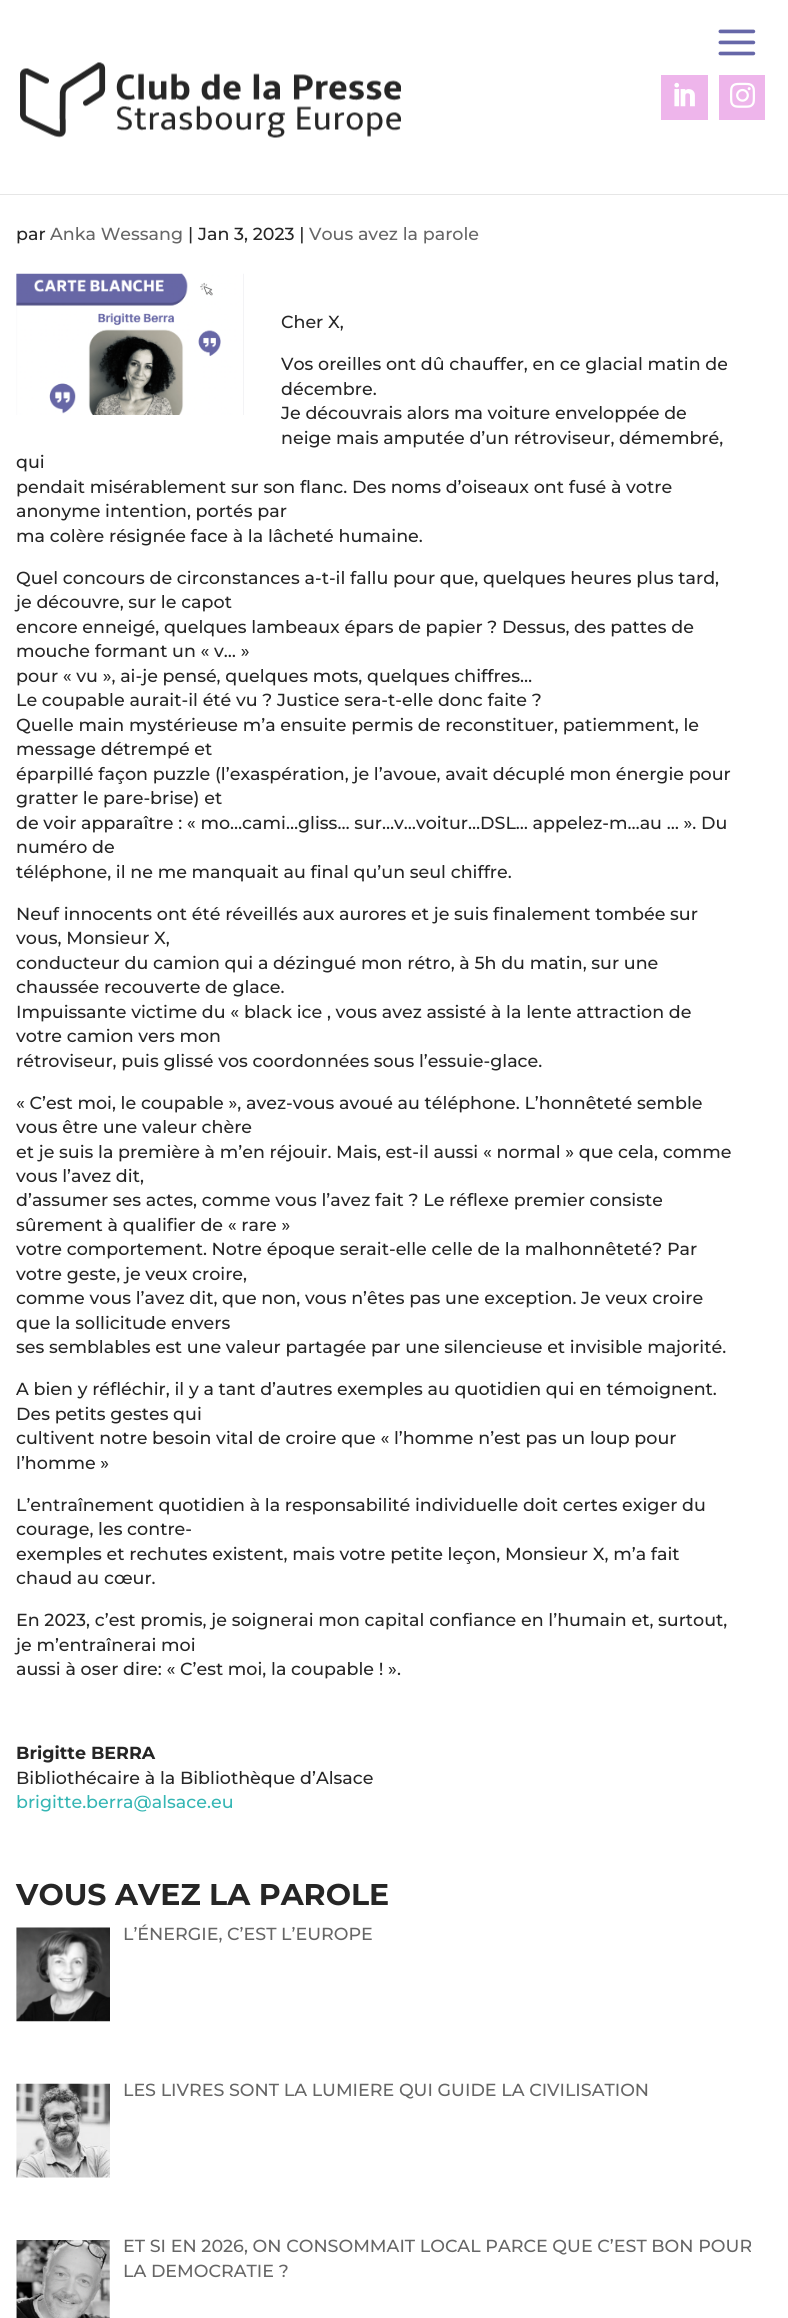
#include <cairo.h>
#include <math.h>
#include <stddef.h>

typedef struct { double x, y; const char *s; } line_t;

static void ink(cairo_t *ctx, unsigned color) {
    cairo_set_source_rgb(ctx, (color >> 16) / 255.0, (color >> 8 & 255) / 255.0, (color & 255) / 255.0);
}

static void paste(cairo_t *ctx, const char *path, double x, double y, double w, double h) {
    cairo_surface_t *image = cairo_image_surface_create_from_png(path);
    cairo_save(ctx);
    cairo_set_source_surface(ctx, image, x, y);
    cairo_rectangle(ctx, x, y, w, h);
    cairo_fill(ctx);
    cairo_restore(ctx);
    cairo_surface_destroy(image);
}

int main(void) {
    cairo_surface_t *surface = cairo_image_surface_create(CAIRO_FORMAT_RGB24, 788, 2318);
    cairo_t *ctx = cairo_create(surface);
    cairo_font_options_t *options = cairo_font_options_create();
    cairo_font_options_set_hint_metrics(options, CAIRO_HINT_METRICS_OFF);
    cairo_font_options_set_hint_style(options, CAIRO_HINT_STYLE_NONE);
    cairo_set_font_options(ctx, options);
    cairo_set_miter_limit(ctx, 4);
    ink(ctx, 0xFFFFFF);
    cairo_paint(ctx);
    cairo_set_source_rgba(ctx, 0, 0, 0, 0.1);
    cairo_new_path(ctx);
    cairo_move_to(ctx, 0, 194);
    cairo_line_to(ctx, 0, 195);
    cairo_line_to(ctx, 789, 195);
    cairo_line_to(ctx, 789, 1);
    cairo_line_to(ctx, 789, 194);
    cairo_close_path(ctx);
    cairo_fill(ctx);
    paste(ctx, "media/1.png", 718, 29, 38, 27);
    paste(ctx, "media/2.png", 20, 62, 381, 76);
    ink(ctx, 0xEEB5EB);
    cairo_rectangle(ctx, 661, 75, 47, 45);
    cairo_fill(ctx);
    paste(ctx, "media/3.png", 674, 82, 21, 25);
    cairo_rectangle(ctx, 719, 75, 46, 45);
    cairo_fill(ctx);
    paste(ctx, "media/4.png", 730, 82, 25, 26);
    cairo_select_font_face(ctx, "Montserrat Thin", CAIRO_FONT_SLANT_NORMAL, CAIRO_FONT_WEIGHT_NORMAL);
    cairo_set_font_size(ctx, 17.5);
    ink(ctx, 0x262626);
    cairo_move_to(ctx, 16, 240);
    cairo_show_text(ctx, "par");
    ink(ctx, 0x666666);
    cairo_move_to(ctx, 50, 240);
    cairo_show_text(ctx, "Anka Wessang");
    ink(ctx, 0x262626);
    cairo_move_to(ctx, 188, 240);
    cairo_show_text(ctx, "| Jan 3, 2023 |");
    ink(ctx, 0x666666);
    cairo_move_to(ctx, 309, 240);
    cairo_show_text(ctx, "Vous avez la parole");
    paste(ctx, "media/5.png", 16, 273, 228, 142);
    ink(ctx, 0x262626);
    {
        static const line_t items[] = {
            {281, 328, "Cher X,"},
            {281, 370, "Vos oreilles ont dû chauffer, en ce glacial matin de"},
            {281, 395, "décembre."},
            {281, 419, "Je découvrais alors ma voiture enveloppée de"},
            {281, 444, "neige mais amputée d’un rétroviseur, démembré,"},
            {16, 468, "qui"},
            {16, 493, "pendait misérablement sur son flanc. Des noms d’oiseaux ont fusé à votre"},
            {16, 517, "anonyme intention, portés par"},
            {16, 542, "ma colère résignée face à la lâcheté humaine."},
            {16, 584, "Quel concours de circonstances a-t-il fallu pour que, quelques heures plus tard,"},
            {16, 608, "je découvre, sur le capot"},
            {16, 633, "encore enneigé, quelques lambeaux épars de papier ? Dessus, des pattes de"},
            {16, 657, "mouche formant un « v… »"},
            {16, 682, "pour « vu », ai-je pensé, quelques mots, quelques chiffres…"},
            {16, 706, "Le coupable aurait-il été vu ? Justice sera-t-elle donc faite ?"},
            {16, 731, "Quelle main mystérieuse m’a ensuite permis de reconstituer, patiemment, le"},
            {16, 755, "message détrempé et"},
            {16, 780, "éparpillé façon puzzle (l’exaspération, je l’avoue, avait décuplé mon énergie pour"},
            {16, 804, "gratter le pare-brise) et"},
            {16, 829, "de voir apparaître : « mo…cami…gliss… sur…v…voitur…DSL… appelez-m…au … ». Du"},
            {16, 853, "numéro de"},
            {16, 878, "téléphone, il ne me manquait au final qu’un seul chiffre."},
            {16, 920, "Neuf innocents ont été réveillés aux aurores et je suis finalement tombée sur"},
            {16, 944, "vous, Monsieur X,"},
            {16, 969, "conducteur du camion qui a dézingué mon rétro, à 5h du matin, sur une"},
            {16, 993, "chaussée recouverte de glace."},
            {16, 1018, "Impuissante victime du « black ice , vous avez assisté à la lente attraction de"},
            {16, 1042, "votre camion vers mon"},
            {16, 1067, "rétroviseur, puis glissé vos coordonnées sous l’essuie-glace."},
            {16, 1109, "« C’est moi, le coupable », avez-vous avoué au téléphone. L’honnêteté semble"},
            {16, 1133, "vous être une valeur chère"},
            {16, 1158, "et je suis la première à m’en réjouir. Mais, est-il aussi « normal » que cela, comme"},
            {16, 1182, "vous l’avez dit,"},
            {16, 1206, "d’assumer ses actes, comme vous l’avez fait ? Le réflexe premier consiste"},
            {16, 1231, "sûrement à qualifier de « rare »"},
            {16, 1255, "votre comportement. Notre époque serait-elle celle de la malhonnêteté? Par"},
            {16, 1280, "votre geste, je veux croire,"},
            {16, 1304, "comme vous l’avez dit, que non, vous n’êtes pas une exception. Je veux croire"},
            {16, 1329, "que la sollicitude envers"},
            {16, 1353, "ses semblables est une valeur partagée par une silencieuse et invisible majorité."},
            {16, 1395, "A bien y réfléchir, il y a tant d’autres exemples au quotidien qui en témoignent."},
            {16, 1420, "Des petits gestes qui"},
            {16, 1444, "cultivent notre besoin vital de croire que « l’homme n’est pas un loup pour"},
            {16, 1469, "l’homme »"},
            {16, 1511, "L’entraînement quotidien à la responsabilité individuelle doit certes exiger du"},
            {16, 1535, "courage, les contre-"},
            {16, 1560, "exemples et rechutes existent, mais votre petite leçon, Monsieur X, m’a fait"},
            {16, 1584, "chaud au cœur."},
            {16, 1626, "En 2023, c’est promis, je soignerai mon capital confiance en l’humain et, surtout,"},
            {16, 1651, "je m’entraînerai moi"},
            {16, 1675, "aussi à oser dire: « C’est moi, la coupable ! »."},
        };
        for (size_t i = 0; i < sizeof items / sizeof *items; i++) {
            cairo_move_to(ctx, items[i].x, items[i].y);
            cairo_show_text(ctx, items[i].s);
        }
    }
    cairo_select_font_face(ctx, "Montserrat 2 Thin", CAIRO_FONT_SLANT_NORMAL, CAIRO_FONT_WEIGHT_NORMAL);
    cairo_move_to(ctx, 16, 1759);
    cairo_show_text(ctx, "Brigitte BERRA");
    cairo_select_font_face(ctx, "Montserrat Thin", CAIRO_FONT_SLANT_NORMAL, CAIRO_FONT_WEIGHT_NORMAL);
    cairo_move_to(ctx, 16, 1784);
    cairo_show_text(ctx, "Bibliothécaire à la Bibliothèque d’Alsace");
    ink(ctx, 0x35B6B4);
    cairo_move_to(ctx, 16, 1808);
    cairo_show_text(ctx, "brigitte.berra@alsace.eu");
    cairo_select_font_face(ctx, "Montserrat 2 Thin", CAIRO_FONT_SLANT_NORMAL, CAIRO_FONT_WEIGHT_NORMAL);
    cairo_set_font_size(ctx, 30);
    ink(ctx, 0x262626);
    cairo_move_to(ctx, 16, 1905);
    cairo_show_text(ctx, "VOUS AVEZ LA PAROLE");
    paste(ctx, "media/6.png", 16, 1927, 94, 95);
    cairo_select_font_face(ctx, "Montserrat Thin", CAIRO_FONT_SLANT_NORMAL, CAIRO_FONT_WEIGHT_NORMAL);
    cairo_set_font_size(ctx, 17.5);
    ink(ctx, 0x666666);
    cairo_move_to(ctx, 123, 1940);
    cairo_show_text(ctx, "L’ÉNERGIE, C’EST L’EUROPE");
    paste(ctx, "media/7.png", 16, 2083, 94, 95);
    cairo_move_to(ctx, 123, 2096);
    cairo_show_text(ctx, "LES LIVRES SONT LA LUMIERE QUI GUIDE LA CIVILISATION");
    paste(ctx, "media/8.png", 16, 2240, 94, 78);
    cairo_move_to(ctx, 123, 2252);
    cairo_show_text(ctx, "ET SI EN 2026, ON CONSOMMAIT LOCAL PARCE QUE C’EST BON POUR");
    cairo_move_to(ctx, 123, 2277);
    cairo_show_text(ctx, "LA DEMOCRATIE ?");
    cairo_surface_write_to_png(surface, "image.png");
    cairo_font_options_destroy(options);
    cairo_destroy(ctx);
    cairo_surface_destroy(surface);
    return 0;
}
